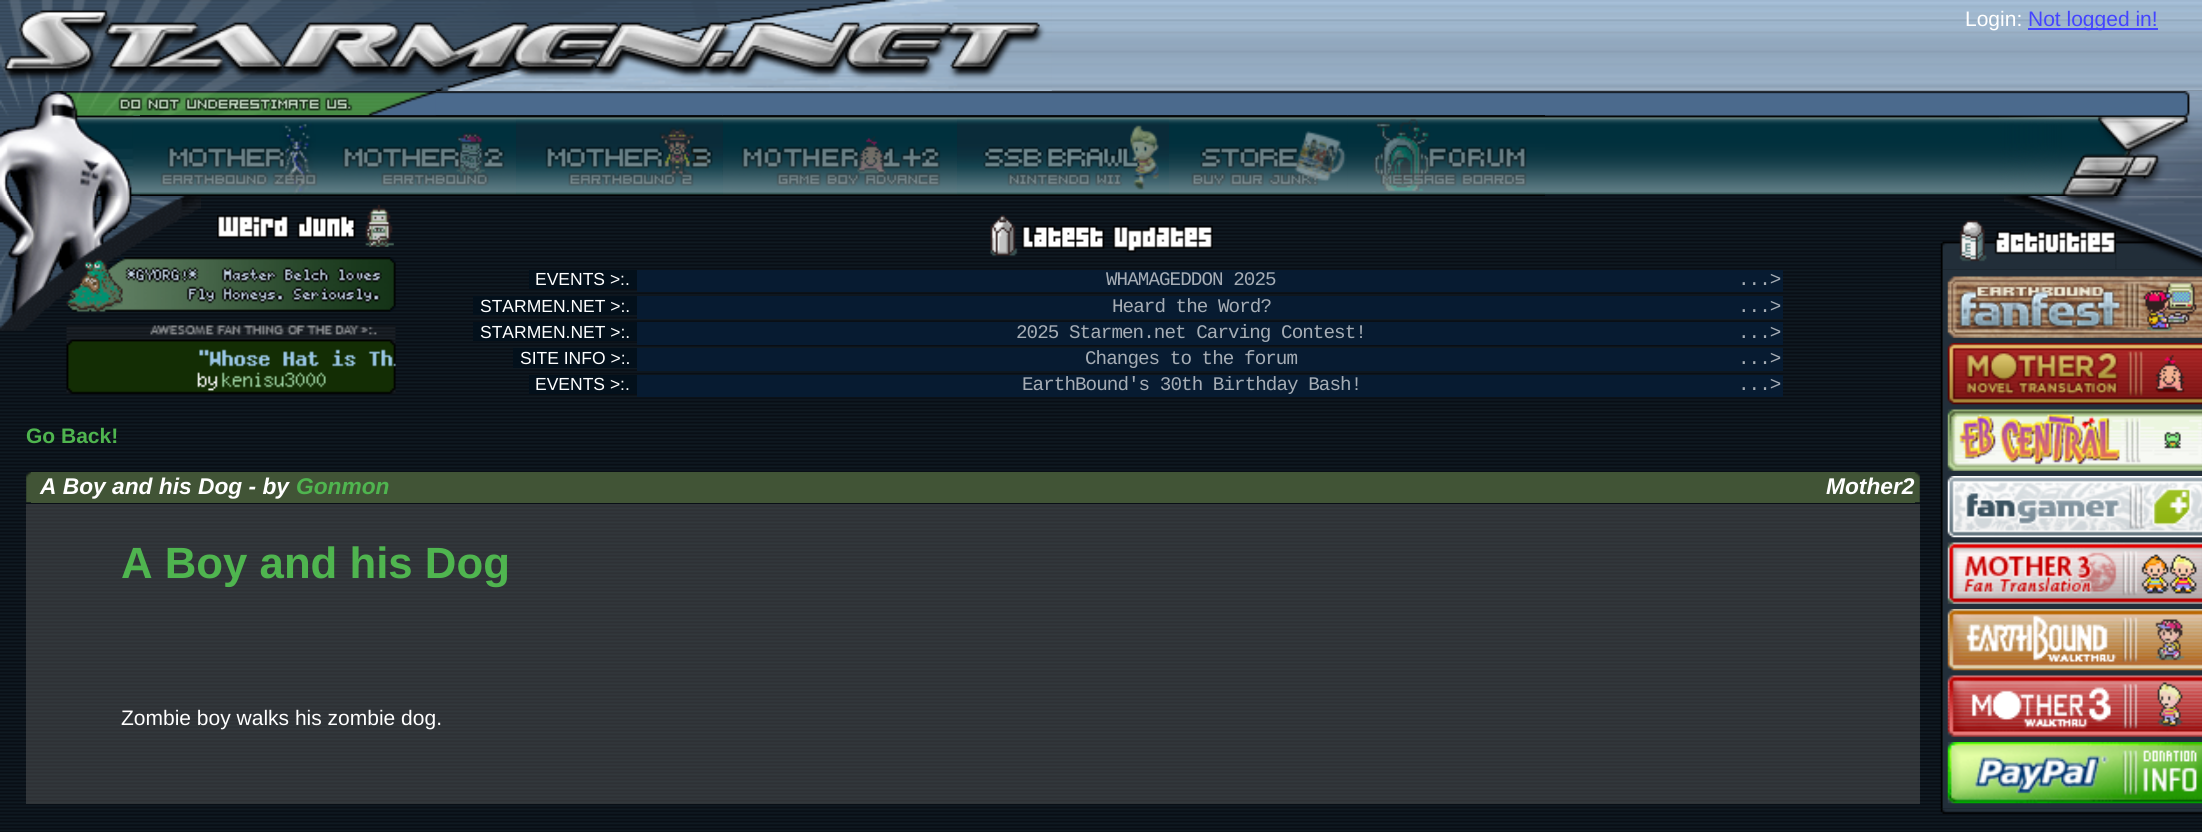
#include <cairo.h>
#include <math.h>
#include <stddef.h>


static void ink(cairo_t *ctx, unsigned color) {
    cairo_set_source_rgb(ctx, (color >> 16) / 255.0, (color >> 8 & 255) / 255.0, (color & 255) / 255.0);
}

static void write_spaced(cairo_t *ctx, double x, double y, const char *s, double letter, double word) {
    cairo_move_to(ctx, x, y);
    while (*s) {
        char ch[5] = {0};
        int n = 0;
        do ch[n++] = *s++; while ((*s & 0xC0) == 0x80);
        cairo_show_text(ctx, ch);
        cairo_rel_move_to(ctx, letter + word * (*ch == ' '), 0);
    }
}

static void paste(cairo_t *ctx, const char *path, double x, double y, double w, double h) {
    cairo_surface_t *image = cairo_image_surface_create_from_png(path);
    cairo_save(ctx);
    cairo_set_source_surface(ctx, image, x, y);
    cairo_rectangle(ctx, x, y, w, h);
    cairo_fill(ctx);
    cairo_restore(ctx);
    cairo_surface_destroy(image);
}

int main(void) {
    cairo_surface_t *surface = cairo_image_surface_create(CAIRO_FORMAT_RGB24, 2202, 832);
    cairo_t *ctx = cairo_create(surface);
    cairo_font_options_t *options = cairo_font_options_create();
    cairo_font_options_set_hint_metrics(options, CAIRO_HINT_METRICS_OFF);
    cairo_font_options_set_hint_style(options, CAIRO_HINT_STYLE_NONE);
    cairo_set_font_options(ctx, options);
    cairo_set_miter_limit(ctx, 4);
    ink(ctx, 0xFFFFFF);
    cairo_paint(ctx);
    paste(ctx, "media/1.png", 0, 194, 2202, 638);
    paste(ctx, "media/2.png", 132, 0, 2070, 195);
    paste(ctx, "media/3.png", 0, 0, 1052, 91);
    cairo_select_font_face(ctx, "Liberation Sans", CAIRO_FONT_SLANT_NORMAL, CAIRO_FONT_WEIGHT_NORMAL);
    cairo_set_font_size(ctx, 21);
    ink(ctx, 0xFFFFFF);
    cairo_move_to(ctx, 1965, 26);
    cairo_show_text(ctx, "Login:");
    ink(ctx, 0x4444FF);
    cairo_rectangle(ctx, 2028, 28, 130, 2);
    cairo_fill(ctx);
    cairo_move_to(ctx, 2028, 26);
    cairo_show_text(ctx, "Not logged in!");
    paste(ctx, "media/4.png", 0, 91, 436, 105);
    paste(ctx, "media/5.png", 140, 115, 182, 81);
    paste(ctx, "media/6.png", 140, 115, 182, 73);
    paste(ctx, "media/7.png", 322, 115, 195, 81);
    paste(ctx, "media/8.png", 322, 115, 195, 81);
    paste(ctx, "media/9.png", 516, 115, 207, 81);
    paste(ctx, "media/10.png", 516, 115, 207, 81);
    paste(ctx, "media/11.png", 723, 115, 235, 81);
    paste(ctx, "media/12.png", 723, 115, 235, 81);
    paste(ctx, "media/13.png", 957, 115, 212, 81);
    paste(ctx, "media/14.png", 957, 115, 212, 77);
    paste(ctx, "media/15.png", 1169, 115, 179, 81);
    paste(ctx, "media/16.png", 1169, 115, 179, 81);
    paste(ctx, "media/17.png", 1347, 115, 198, 81);
    paste(ctx, "media/18.png", 1347, 115, 198, 76);
    paste(ctx, "media/19.png", 1999, 91, 203, 105);
    paste(ctx, "media/20.png", 0, 196, 201, 135);
    paste(ctx, "media/21.png", 217, 204, 177, 43);
    paste(ctx, "media/22.png", 66, 257, 330, 55);
    paste(ctx, "media/23.png", 66, 325, 330, 69);
    paste(ctx, "media/24.png", 990, 215, 223, 41);
    ink(ctx, 0x03101B);
    cairo_rectangle(ctx, 529, 270, 108, 19);
    cairo_fill(ctx);
    cairo_set_font_size(ctx, 17.5);
    ink(ctx, 0xFFFFFF);
    cairo_move_to(ctx, 535, 285);
    cairo_show_text(ctx, "EVENTS >:.");
    ink(ctx, 0x071B31);
    cairo_rectangle(ctx, 637, 270, 1146, 22);
    cairo_fill(ctx);
    cairo_select_font_face(ctx, "Liberation Mono", CAIRO_FONT_SLANT_NORMAL, CAIRO_FONT_WEIGHT_NORMAL);
    cairo_set_font_size(ctx, 19.25);
    ink(ctx, 0xA6ADB5);
    write_spaced(ctx, 1106, 285, "WHAMAGEDDON 2025", -0.95, 0);
    write_spaced(ctx, 1738, 285, "...>", -0.95, 0);
    ink(ctx, 0x03101B);
    cairo_rectangle(ctx, 473, 296, 164, 19);
    cairo_fill(ctx);
    cairo_select_font_face(ctx, "Liberation Sans", CAIRO_FONT_SLANT_NORMAL, CAIRO_FONT_WEIGHT_NORMAL);
    cairo_set_font_size(ctx, 17.5);
    ink(ctx, 0xFFFFFF);
    cairo_move_to(ctx, 480, 312);
    cairo_show_text(ctx, "STARMEN.NET >:.");
    ink(ctx, 0x071B31);
    cairo_rectangle(ctx, 637, 296, 1146, 23);
    cairo_fill(ctx);
    cairo_select_font_face(ctx, "Liberation Mono", CAIRO_FONT_SLANT_NORMAL, CAIRO_FONT_WEIGHT_NORMAL);
    cairo_set_font_size(ctx, 19.25);
    ink(ctx, 0xA6ADB5);
    write_spaced(ctx, 1112, 312, "Heard the Word?", -0.95, 0);
    write_spaced(ctx, 1738, 312, "...>", -0.95, 0);
    ink(ctx, 0x03101B);
    cairo_rectangle(ctx, 473, 322, 164, 19);
    cairo_fill(ctx);
    cairo_select_font_face(ctx, "Liberation Sans", CAIRO_FONT_SLANT_NORMAL, CAIRO_FONT_WEIGHT_NORMAL);
    cairo_set_font_size(ctx, 17.5);
    ink(ctx, 0xFFFFFF);
    cairo_move_to(ctx, 480, 338);
    cairo_show_text(ctx, "STARMEN.NET >:.");
    ink(ctx, 0x071B31);
    cairo_rectangle(ctx, 637, 322, 1146, 23);
    cairo_fill(ctx);
    cairo_select_font_face(ctx, "Liberation Mono", CAIRO_FONT_SLANT_NORMAL, CAIRO_FONT_WEIGHT_NORMAL);
    cairo_set_font_size(ctx, 19.25);
    ink(ctx, 0xA6ADB5);
    write_spaced(ctx, 1016, 338, "2025 Starmen.net Carving Contest!", -0.95, 0);
    write_spaced(ctx, 1738, 338, "...>", -0.95, 0);
    ink(ctx, 0x03101B);
    cairo_rectangle(ctx, 513, 348, 124, 20);
    cairo_fill(ctx);
    cairo_select_font_face(ctx, "Liberation Sans", CAIRO_FONT_SLANT_NORMAL, CAIRO_FONT_WEIGHT_NORMAL);
    cairo_set_font_size(ctx, 17.5);
    ink(ctx, 0xFFFFFF);
    cairo_move_to(ctx, 520, 364);
    cairo_show_text(ctx, "SITE INFO >:.");
    ink(ctx, 0x071B31);
    cairo_rectangle(ctx, 637, 348, 1146, 23);
    cairo_fill(ctx);
    cairo_select_font_face(ctx, "Liberation Mono", CAIRO_FONT_SLANT_NORMAL, CAIRO_FONT_WEIGHT_NORMAL);
    cairo_set_font_size(ctx, 19.25);
    ink(ctx, 0xA6ADB5);
    write_spaced(ctx, 1085, 364, "Changes to the forum", -0.95, 0);
    write_spaced(ctx, 1738, 364, "...>", -0.95, 0);
    ink(ctx, 0x03101B);
    cairo_rectangle(ctx, 529, 375, 108, 19);
    cairo_fill(ctx);
    cairo_select_font_face(ctx, "Liberation Sans", CAIRO_FONT_SLANT_NORMAL, CAIRO_FONT_WEIGHT_NORMAL);
    cairo_set_font_size(ctx, 17.5);
    ink(ctx, 0xFFFFFF);
    cairo_move_to(ctx, 535, 390);
    cairo_show_text(ctx, "EVENTS >:.");
    ink(ctx, 0x071B31);
    cairo_rectangle(ctx, 637, 375, 1146, 22);
    cairo_fill(ctx);
    cairo_select_font_face(ctx, "Liberation Mono", CAIRO_FONT_SLANT_NORMAL, CAIRO_FONT_WEIGHT_NORMAL);
    cairo_set_font_size(ctx, 19.25);
    ink(ctx, 0xA6ADB5);
    write_spaced(ctx, 1022, 390, "EarthBound's 30th Birthday Bash!", -0.95, 0);
    write_spaced(ctx, 1738, 390, "...>", -0.95, 0);
    cairo_select_font_face(ctx, "Liberation Sans", CAIRO_FONT_SLANT_NORMAL, CAIRO_FONT_WEIGHT_BOLD);
    cairo_set_font_size(ctx, 21);
    ink(ctx, 0x4FB54F);
    cairo_move_to(ctx, 26, 443);
    cairo_show_text(ctx, "Go Back!");
    paste(ctx, "media/25.png", 26, 472, 5, 31);
    ink(ctx, 0x415436);
    cairo_rectangle(ctx, 31, 472, 1884, 31);
    cairo_fill(ctx);
    paste(ctx, "media/26.png", 1914, 472, 6, 31);
    cairo_select_font_face(ctx, "Liberation Sans", CAIRO_FONT_SLANT_ITALIC, CAIRO_FONT_WEIGHT_BOLD);
    cairo_set_font_size(ctx, 22.75);
    ink(ctx, 0xFFFFFF);
    cairo_move_to(ctx, 40, 494);
    cairo_show_text(ctx, "A Boy and his Dog - by");
    ink(ctx, 0x4FB54F);
    cairo_move_to(ctx, 296, 494);
    cairo_show_text(ctx, "Gonmon");
    ink(ctx, 0xFFFFFF);
    cairo_move_to(ctx, 1826, 494);
    cairo_show_text(ctx, "Mother2");
    cairo_set_source_rgba(ctx, 0.365, 0.365, 0.365, 0.44);
    cairo_rectangle(ctx, 26, 504, 1894, 300);
    cairo_fill(ctx);
    cairo_select_font_face(ctx, "Liberation Sans", CAIRO_FONT_SLANT_NORMAL, CAIRO_FONT_WEIGHT_BOLD);
    cairo_set_font_size(ctx, 43.75);
    ink(ctx, 0x4FB54F);
    cairo_move_to(ctx, 121, 578);
    cairo_show_text(ctx, "A Boy and his Dog");
    cairo_select_font_face(ctx, "Liberation Sans", CAIRO_FONT_SLANT_NORMAL, CAIRO_FONT_WEIGHT_NORMAL);
    cairo_set_font_size(ctx, 21);
    ink(ctx, 0xFFFFFF);
    cairo_move_to(ctx, 121, 725);
    cairo_show_text(ctx, "Zombie boy walks his zombie dog.");
    paste(ctx, "media/27.png", 2004, 196, 198, 74);
    paste(ctx, "media/28.png", 1940, 220, 176, 50);
    paste(ctx, "media/29.png", 1940, 269, 262, 540);
    paste(ctx, "media/30.png", 1947, 276, 255, 62);
    paste(ctx, "media/31.png", 1947, 343, 255, 62);
    paste(ctx, "media/32.png", 1947, 409, 255, 62);
    paste(ctx, "media/33.png", 1947, 476, 255, 62);
    paste(ctx, "media/34.png", 1947, 542, 255, 62);
    paste(ctx, "media/35.png", 1947, 609, 255, 62);
    paste(ctx, "media/36.png", 1947, 675, 255, 62);
    paste(ctx, "media/37.png", 1947, 742, 255, 62);
    paste(ctx, "media/38.png", 1940, 808, 262, 6);
    cairo_surface_write_to_png(surface, "image.png");
    cairo_font_options_destroy(options);
    cairo_destroy(ctx);
    cairo_surface_destroy(surface);
    return 0;
}
